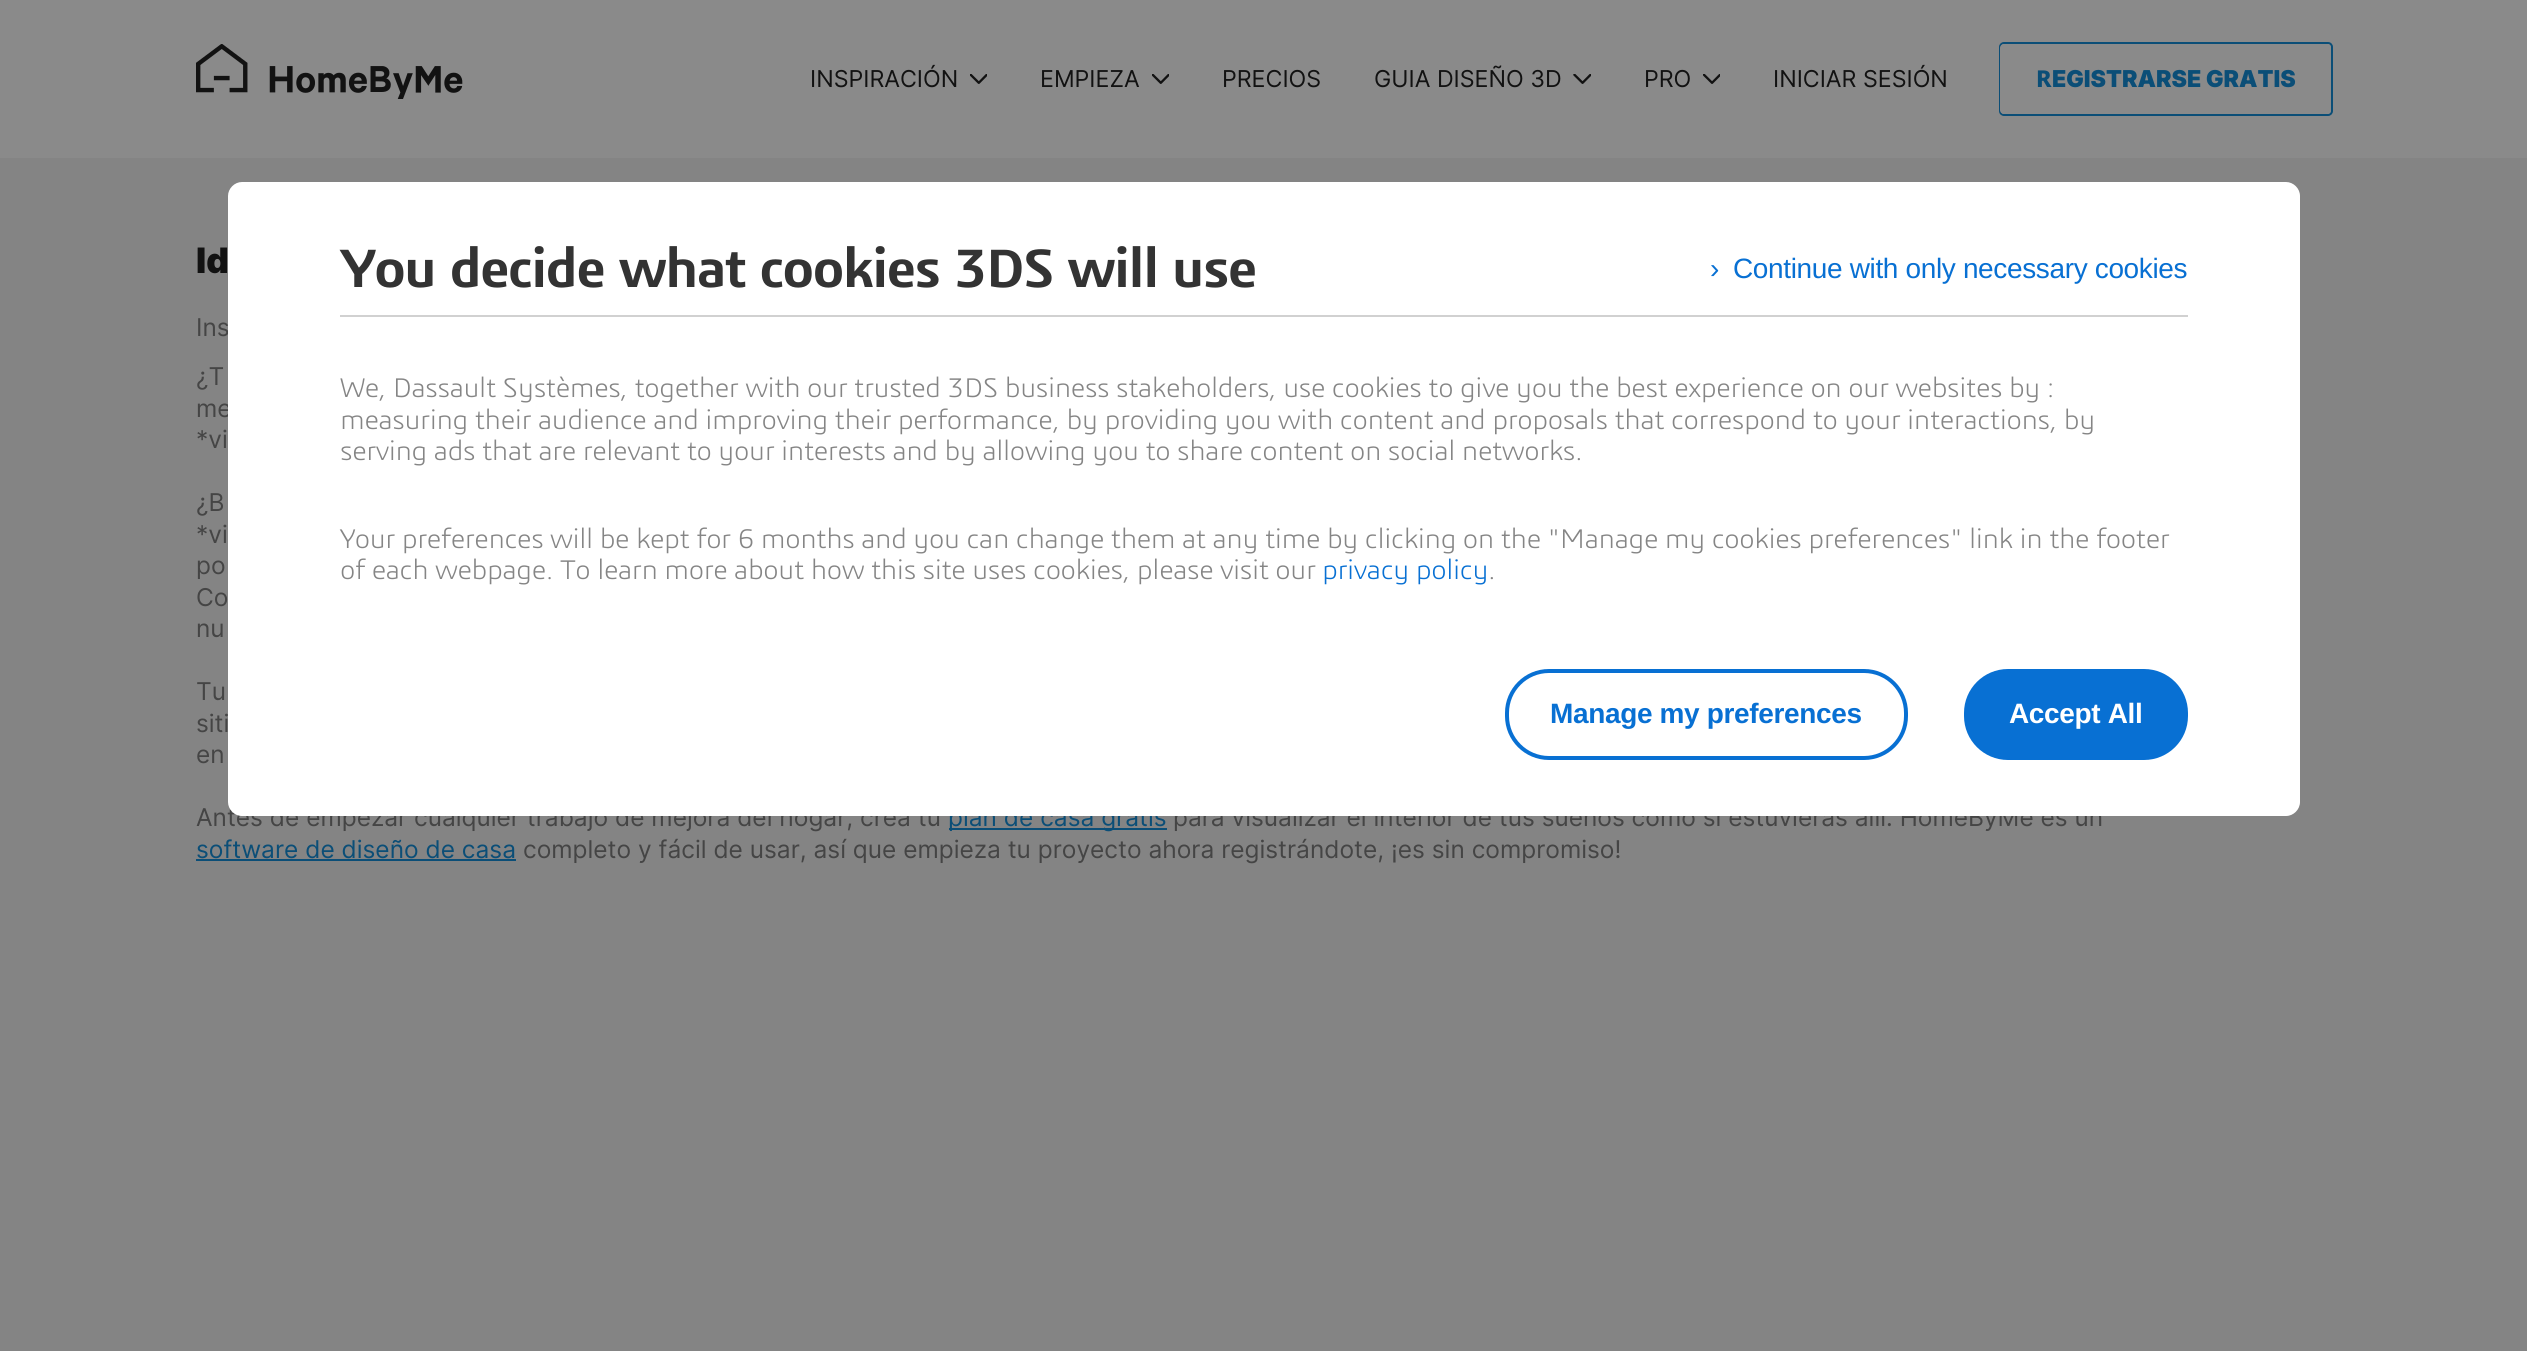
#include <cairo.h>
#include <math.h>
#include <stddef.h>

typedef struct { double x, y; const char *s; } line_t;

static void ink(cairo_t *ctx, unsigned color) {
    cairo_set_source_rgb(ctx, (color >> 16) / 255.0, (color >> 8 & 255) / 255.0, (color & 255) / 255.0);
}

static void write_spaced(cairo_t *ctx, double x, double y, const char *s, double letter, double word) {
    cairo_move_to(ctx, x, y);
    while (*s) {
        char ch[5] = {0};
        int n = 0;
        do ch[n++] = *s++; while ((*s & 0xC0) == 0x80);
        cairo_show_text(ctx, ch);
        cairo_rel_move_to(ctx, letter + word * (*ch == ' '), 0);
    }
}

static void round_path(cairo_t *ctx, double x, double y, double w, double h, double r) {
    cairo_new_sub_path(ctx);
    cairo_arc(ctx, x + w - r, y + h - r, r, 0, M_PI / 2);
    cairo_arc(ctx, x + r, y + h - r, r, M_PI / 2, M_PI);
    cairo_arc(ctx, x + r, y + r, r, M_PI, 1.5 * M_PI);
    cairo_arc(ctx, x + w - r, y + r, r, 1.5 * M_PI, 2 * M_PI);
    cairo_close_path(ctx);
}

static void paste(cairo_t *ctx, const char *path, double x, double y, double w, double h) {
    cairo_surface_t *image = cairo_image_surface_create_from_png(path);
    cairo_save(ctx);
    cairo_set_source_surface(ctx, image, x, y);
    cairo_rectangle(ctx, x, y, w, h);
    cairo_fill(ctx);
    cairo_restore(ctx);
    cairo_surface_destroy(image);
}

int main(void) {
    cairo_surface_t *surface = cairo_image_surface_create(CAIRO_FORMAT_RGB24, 2527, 1351);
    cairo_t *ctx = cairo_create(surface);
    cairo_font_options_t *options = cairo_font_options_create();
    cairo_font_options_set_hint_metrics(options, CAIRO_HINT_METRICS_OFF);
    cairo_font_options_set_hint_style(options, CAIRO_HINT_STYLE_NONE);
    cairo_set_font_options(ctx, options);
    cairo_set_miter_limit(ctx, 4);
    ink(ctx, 0x8A8A8A);
    cairo_paint(ctx);
    paste(ctx, "media/1.png", 196, 44, 267, 55);
    cairo_select_font_face(ctx, "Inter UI", CAIRO_FONT_SLANT_NORMAL, CAIRO_FONT_WEIGHT_NORMAL);
    cairo_set_font_size(ctx, 23.25);
    ink(ctx, 0x121212);
    cairo_move_to(ctx, 810, 87);
    cairo_show_text(ctx, "INSPIRACIÓN");
    paste(ctx, "media/2.png", 970, 74, 17, 10);
    cairo_move_to(ctx, 1040, 87);
    cairo_show_text(ctx, "EMPIEZA");
    paste(ctx, "media/2.png", 1152, 74, 17, 10);
    cairo_move_to(ctx, 1222, 87);
    cairo_show_text(ctx, "PRECIOS");
    cairo_move_to(ctx, 1374, 87);
    cairo_show_text(ctx, "GUIA DISEÑO 3D");
    paste(ctx, "media/3.png", 1573, 74, 18, 10);
    cairo_move_to(ctx, 1644, 87);
    cairo_show_text(ctx, "PRO");
    paste(ctx, "media/4.png", 1703, 74, 17, 10);
    cairo_move_to(ctx, 1773, 87);
    cairo_show_text(ctx, "INICIAR SESIÓN");
    round_path(ctx, 2000, 43, 332, 72, 4);
    ink(ctx, 0x0B4E77);
    cairo_stroke(ctx);
    ink(ctx, 0x8A8A8A);
    round_path(ctx, 2000, 44, 331, 70, 4);
    cairo_fill(ctx);
    cairo_select_font_face(ctx, "Noto Sans ExtraBold", CAIRO_FONT_SLANT_NORMAL, CAIRO_FONT_WEIGHT_NORMAL);
    ink(ctx, 0x0B4E77);
    cairo_move_to(ctx, 2036, 87);
    cairo_show_text(ctx, "R");
    cairo_select_font_face(ctx, "Inter Black", CAIRO_FONT_SLANT_NORMAL, CAIRO_FONT_WEIGHT_NORMAL);
    cairo_move_to(ctx, 2052, 87);
    cairo_show_text(ctx, "EGISTRARSE GRATIS");
    ink(ctx, 0x848484);
    cairo_rectangle(ctx, 0, 158, 2527, 1193);
    cairo_fill(ctx);
    cairo_select_font_face(ctx, "Inter", CAIRO_FONT_SLANT_NORMAL, CAIRO_FONT_WEIGHT_NORMAL);
    cairo_set_font_size(ctx, 24.5);
    ink(ctx, 0x454545);
    cairo_move_to(ctx, 196, 336);
    cairo_show_text(ctx, "Ins");
    cairo_move_to(ctx, 196, 417);
    cairo_show_text(ctx, "me");
    ink(ctx, 0xFFFFFF);
    cairo_new_path(ctx);
    cairo_move_to(ctx, 242, 182);
    cairo_line_to(ctx, 2286, 182);
    cairo_curve_to(ctx, 2293.5, 182, 2300, 188.5, 2300, 196);
    cairo_line_to(ctx, 2300, 642);
    cairo_line_to(ctx, 228, 642);
    cairo_line_to(ctx, 228, 196);
    cairo_curve_to(ctx, 228, 188.5, 234.5, 182, 242, 182);
    cairo_close_path(ctx);
    cairo_fill(ctx);
    ink(ctx, 0xD1D1D1);
    cairo_rectangle(ctx, 340, 315, 1848, 2);
    cairo_fill(ctx);
    cairo_select_font_face(ctx, "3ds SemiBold", CAIRO_FONT_SLANT_NORMAL, CAIRO_FONT_WEIGHT_NORMAL);
    cairo_set_font_size(ctx, 56);
    ink(ctx, 0x333333);
    write_spaced(ctx, 340, 287, "You decide what cookies 3DS will use", -1.4, 0);
    cairo_select_font_face(ctx, "Liberation Sans", CAIRO_FONT_SLANT_NORMAL, CAIRO_FONT_WEIGHT_NORMAL);
    cairo_set_font_size(ctx, 28);
    ink(ctx, 0x0870D3);
    write_spaced(ctx, 1710, 278, "›", -0.35, 0);
    write_spaced(ctx, 1733, 278, "Continue with only necessary cookies", -0.35, 0);
    cairo_select_font_face(ctx, "3ds Light", CAIRO_FONT_SLANT_NORMAL, CAIRO_FONT_WEIGHT_NORMAL);
    ink(ctx, 0x858585);
    {
        static const line_t items[] = {
            {340, 397, "We, Dassault Systèmes, together with our trusted 3DS business stakeholders, use cookies to give you the best experience on our websites by :"},
            {340, 429, "measuring their audience and improving their performance, by providing you with content and proposals that correspond to your interactions, by"},
            {340, 460, "serving ads that are relevant to your interests and by allowing you to share content on social networks."},
            {340, 548, "Your preferences will be kept for 6 months and you can change them at any time by clicking on the \"Manage my cookies preferences\" link in the footer"},
            {340, 579, "of each webpage. To learn more about how this site uses cookies, please visit our"},
        };
        for (size_t i = 0; i < sizeof items / sizeof *items; i++) {
            write_spaced(ctx, items[i].x, items[i].y, items[i].s, -0.35, 0);
        }
    }
    ink(ctx, 0x0870D3);
    write_spaced(ctx, 1322, 579, "privacy policy", -0.35, 0);
    ink(ctx, 0x858585);
    write_spaced(ctx, 1488, 579, ".", -0.35, 0);
    cairo_select_font_face(ctx, "Inter", CAIRO_FONT_SLANT_NORMAL, CAIRO_FONT_WEIGHT_NORMAL);
    cairo_set_font_size(ctx, 24.5);
    ink(ctx, 0x454545);
    cairo_move_to(ctx, 196, 826);
    cairo_show_text(ctx, "Antes de empezar cualquier trabajo de mejora del hogar, crea tu");
    ink(ctx, 0x0B4E77);
    cairo_rectangle(ctx, 949, 828, 218, 2);
    cairo_fill(ctx);
    cairo_move_to(ctx, 948, 826);
    cairo_show_text(ctx, "plan de casa gratis");
    ink(ctx, 0x454545);
    cairo_move_to(ctx, 1173, 826);
    cairo_show_text(ctx, "para visualizar el interior de tus sueños como si estuvieras allí. HomeByMe es un");
    ink(ctx, 0xFFFFFF);
    cairo_new_path(ctx);
    cairo_move_to(ctx, 228, 642);
    cairo_line_to(ctx, 2300, 642);
    cairo_line_to(ctx, 2300, 802);
    cairo_curve_to(ctx, 2300, 809.5, 2293.5, 816, 2286, 816);
    cairo_line_to(ctx, 242, 816);
    cairo_curve_to(ctx, 234.5, 816, 228, 809.5, 228, 802);
    cairo_close_path(ctx);
    cairo_fill(ctx);
    round_path(ctx, 1507, 671, 399, 87, 42);
    ink(ctx, 0x0870D3);
    cairo_set_line_width(ctx, 4);
    cairo_stroke(ctx);
    cairo_select_font_face(ctx, "Liberation Sans", CAIRO_FONT_SLANT_NORMAL, CAIRO_FONT_WEIGHT_BOLD);
    cairo_set_font_size(ctx, 28);
    write_spaced(ctx, 1550, 723, "Manage my preferences", -0.35, 0);
    round_path(ctx, 1964, 669, 224, 91, 44);
    cairo_fill(ctx);
    ink(ctx, 0xFFFFFF);
    write_spaced(ctx, 2009, 723, "Accept All", -0.35, 0);
    cairo_select_font_face(ctx, "Inter Black", CAIRO_FONT_SLANT_NORMAL, CAIRO_FONT_WEIGHT_NORMAL);
    cairo_set_font_size(ctx, 35);
    ink(ctx, 0x121212);
    cairo_move_to(ctx, 196, 273);
    cairo_show_text(ctx, "Id");
    cairo_select_font_face(ctx, "Inter", CAIRO_FONT_SLANT_NORMAL, CAIRO_FONT_WEIGHT_NORMAL);
    cairo_set_font_size(ctx, 24.5);
    ink(ctx, 0x454545);
    {
        static const line_t items[] = {
            {196, 385, "¿T"},
            {196, 448, "*vi"},
            {196, 511, "¿B"},
            {196, 543, "*vi"},
            {196, 574, "po"},
            {196, 606, "Co"},
            {196, 637, "nu"},
            {196, 700, "Tu"},
            {196, 732, "siti"},
            {196, 763, "en"},
        };
        for (size_t i = 0; i < sizeof items / sizeof *items; i++) {
            cairo_move_to(ctx, items[i].x, items[i].y);
            cairo_show_text(ctx, items[i].s);
        }
    }
    ink(ctx, 0x0B4E77);
    cairo_move_to(ctx, 196, 858);
    cairo_show_text(ctx, "software de diseño de casa");
    cairo_rectangle(ctx, 196, 859, 320, 2);
    cairo_fill(ctx);
    ink(ctx, 0x454545);
    cairo_move_to(ctx, 523, 858);
    cairo_show_text(ctx, "completo y fácil de usar, así que empieza tu proyecto ahora registrándote, ¡es sin compromiso!");
    cairo_surface_write_to_png(surface, "image.png");
    cairo_font_options_destroy(options);
    cairo_destroy(ctx);
    cairo_surface_destroy(surface);
    return 0;
}
